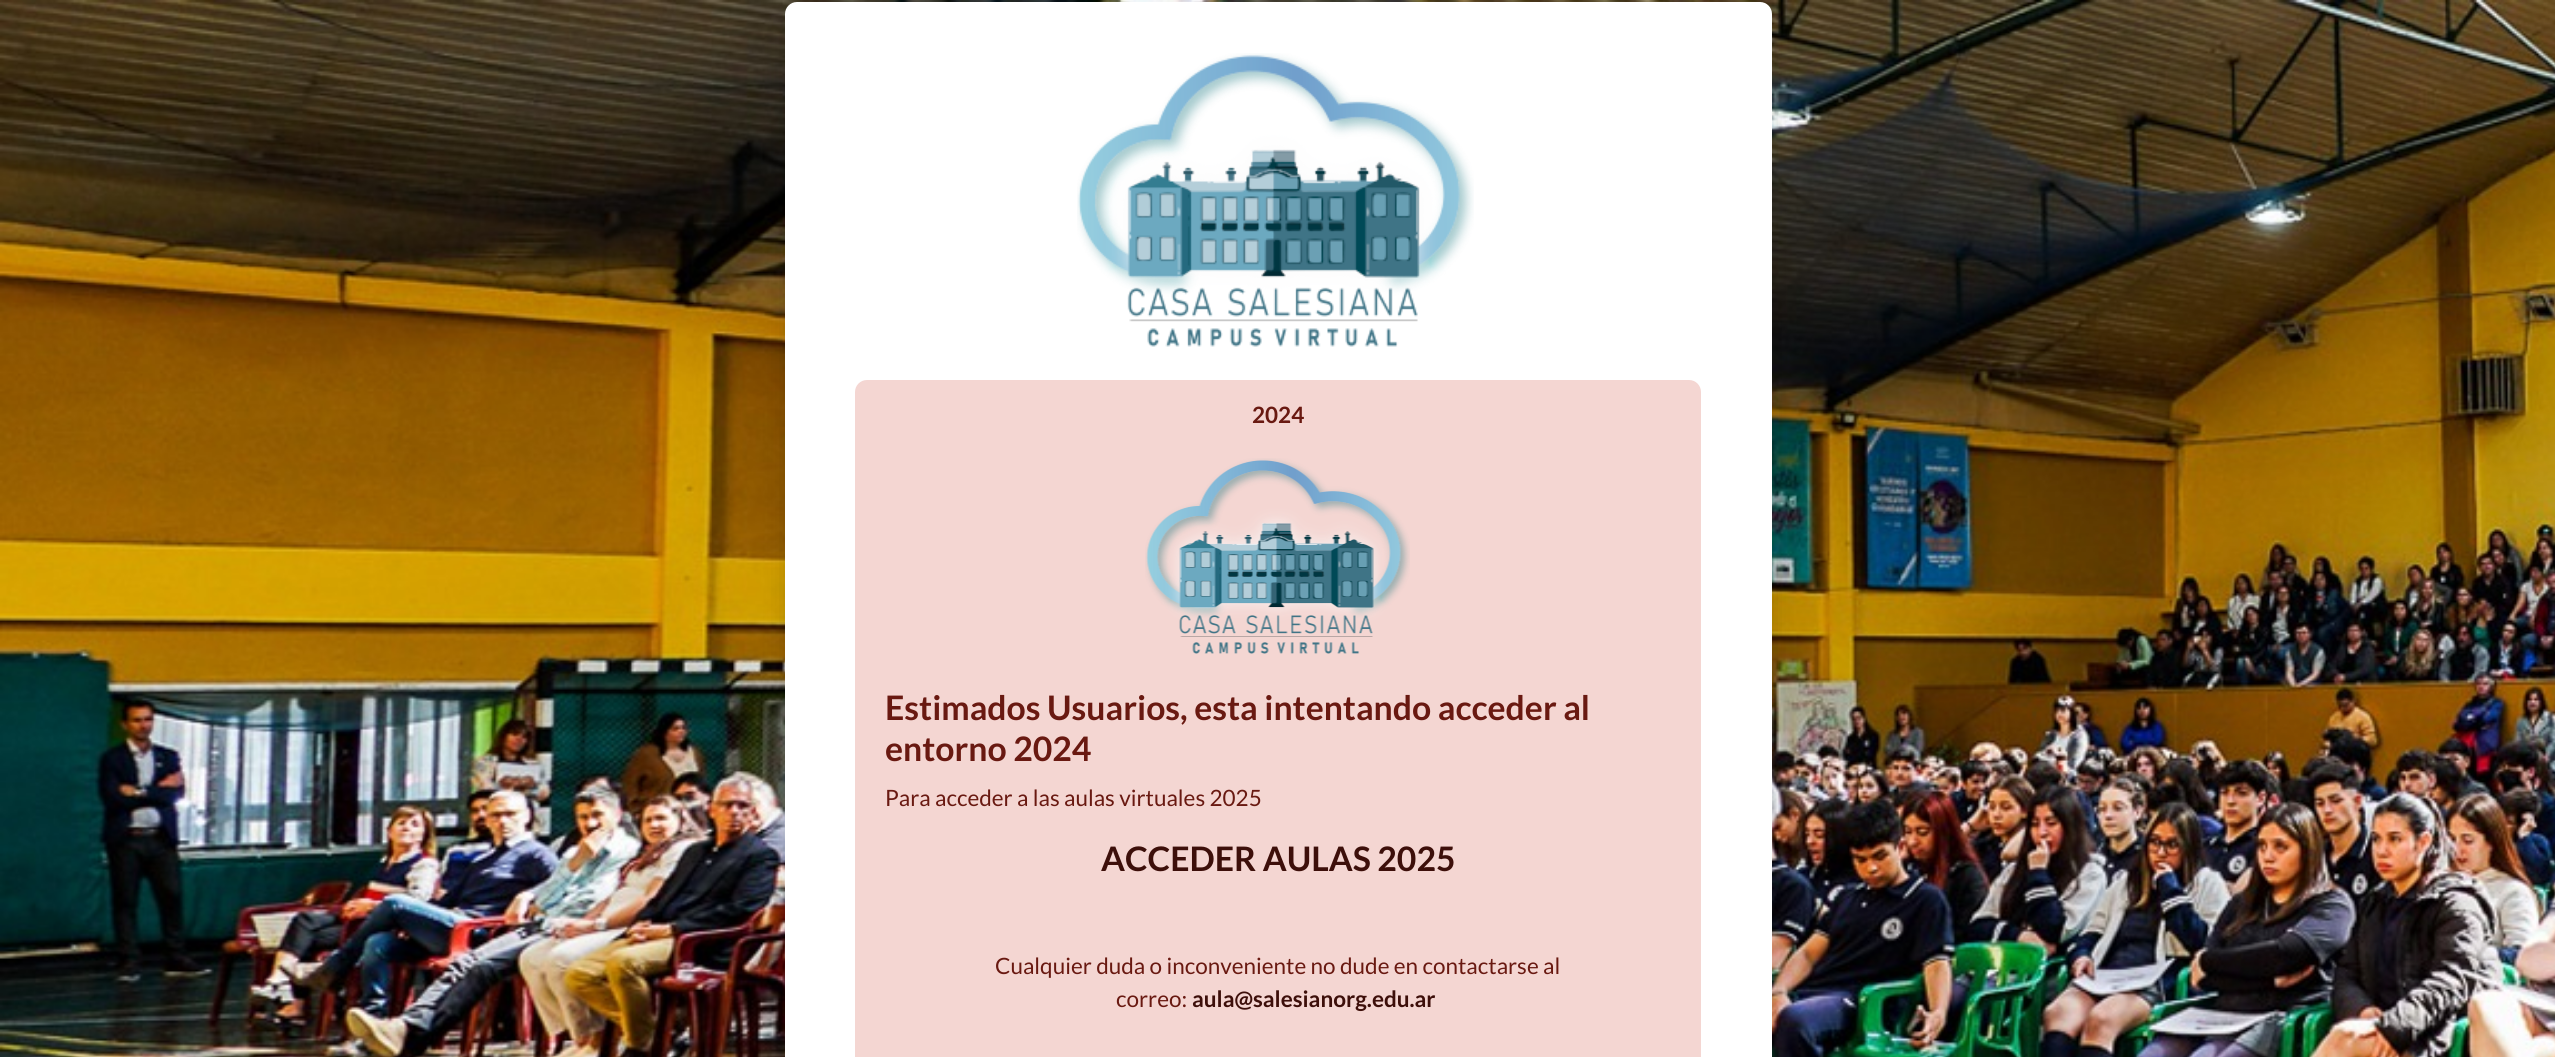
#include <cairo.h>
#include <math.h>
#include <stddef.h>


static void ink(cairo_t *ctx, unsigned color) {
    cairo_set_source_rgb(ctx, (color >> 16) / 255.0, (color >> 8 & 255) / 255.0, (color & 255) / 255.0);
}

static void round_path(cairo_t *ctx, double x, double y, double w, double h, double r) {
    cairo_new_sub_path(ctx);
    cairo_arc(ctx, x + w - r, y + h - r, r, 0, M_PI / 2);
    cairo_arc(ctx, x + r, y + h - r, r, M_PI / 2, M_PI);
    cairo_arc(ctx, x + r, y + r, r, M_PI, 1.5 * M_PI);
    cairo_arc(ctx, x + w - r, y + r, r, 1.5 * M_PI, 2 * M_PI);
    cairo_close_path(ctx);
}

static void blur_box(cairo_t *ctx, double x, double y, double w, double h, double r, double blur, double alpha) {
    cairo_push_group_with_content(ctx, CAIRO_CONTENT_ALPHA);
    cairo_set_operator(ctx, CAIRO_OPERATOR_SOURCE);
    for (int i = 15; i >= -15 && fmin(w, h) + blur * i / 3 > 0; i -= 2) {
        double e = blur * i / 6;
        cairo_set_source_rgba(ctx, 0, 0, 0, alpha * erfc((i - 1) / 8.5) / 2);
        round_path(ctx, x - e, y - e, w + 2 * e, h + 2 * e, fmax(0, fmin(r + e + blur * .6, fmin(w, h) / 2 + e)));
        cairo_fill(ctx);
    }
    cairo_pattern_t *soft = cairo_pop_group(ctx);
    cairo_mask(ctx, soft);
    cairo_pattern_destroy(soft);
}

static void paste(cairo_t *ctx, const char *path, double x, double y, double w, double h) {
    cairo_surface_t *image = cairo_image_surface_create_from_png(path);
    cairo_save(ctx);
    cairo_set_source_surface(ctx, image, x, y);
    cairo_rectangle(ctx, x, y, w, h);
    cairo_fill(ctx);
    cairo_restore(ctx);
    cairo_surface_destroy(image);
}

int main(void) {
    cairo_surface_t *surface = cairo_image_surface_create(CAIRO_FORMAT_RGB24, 2555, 1057);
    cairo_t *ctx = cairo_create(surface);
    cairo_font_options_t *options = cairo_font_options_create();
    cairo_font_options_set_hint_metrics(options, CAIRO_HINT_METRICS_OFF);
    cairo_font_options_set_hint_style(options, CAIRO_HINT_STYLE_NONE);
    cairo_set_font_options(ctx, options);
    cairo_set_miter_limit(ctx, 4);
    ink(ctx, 0xFFFFFF);
    cairo_paint(ctx);
    paste(ctx, "media/1.png", 0, 0, 2555, 1057);
    ink(ctx, 0x000000);
    blur_box(ctx, 785, 14, 987, 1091, 12, 12, 0.15);
    ink(ctx, 0xFFFFFF);
    round_path(ctx, 785, 2, 987, 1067, 12);
    cairo_fill(ctx);
    paste(ctx, "media/2.png", 1077, 53, 397, 294);
    ink(ctx, 0xF4D6D2);
    round_path(ctx, 855, 380, 846, 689, 12);
    cairo_fill(ctx);
    cairo_select_font_face(ctx, "Lato", CAIRO_FONT_SLANT_NORMAL, CAIRO_FONT_WEIGHT_BOLD);
    cairo_set_font_size(ctx, 22.5);
    ink(ctx, 0x691911);
    cairo_move_to(ctx, 1252, 423);
    cairo_show_text(ctx, "2024");
    paste(ctx, "media/3.png", 1145, 458, 265, 196);
    cairo_set_font_size(ctx, 33.75);
    cairo_move_to(ctx, 885, 720);
    cairo_show_text(ctx, "Estimados Usuarios, esta intentando acceder al");
    cairo_move_to(ctx, 885, 761);
    cairo_show_text(ctx, "entorno 2024");
    cairo_select_font_face(ctx, "Lato", CAIRO_FONT_SLANT_NORMAL, CAIRO_FONT_WEIGHT_NORMAL);
    cairo_set_font_size(ctx, 22.5);
    cairo_move_to(ctx, 885, 806);
    cairo_show_text(ctx, "Para acceder a las aulas virtuales 2025");
    cairo_select_font_face(ctx, "Lato", CAIRO_FONT_SLANT_NORMAL, CAIRO_FONT_WEIGHT_BOLD);
    cairo_set_font_size(ctx, 33.75);
    ink(ctx, 0x3D0F0A);
    cairo_move_to(ctx, 1101, 871);
    cairo_show_text(ctx, "ACCEDER AULAS 2025");
    cairo_select_font_face(ctx, "Lato", CAIRO_FONT_SLANT_NORMAL, CAIRO_FONT_WEIGHT_NORMAL);
    cairo_set_font_size(ctx, 22.5);
    ink(ctx, 0x691911);
    cairo_move_to(ctx, 995, 974);
    cairo_show_text(ctx, "Cualquier duda o inconveniente no dude en contactarse al");
    cairo_move_to(ctx, 1116, 1007);
    cairo_show_text(ctx, "correo:");
    cairo_select_font_face(ctx, "Lato", CAIRO_FONT_SLANT_NORMAL, CAIRO_FONT_WEIGHT_BOLD);
    ink(ctx, 0x3D0F0A);
    cairo_move_to(ctx, 1192, 1007);
    cairo_show_text(ctx, "aula@salesianorg.edu.ar");
    cairo_surface_write_to_png(surface, "image.png");
    cairo_font_options_destroy(options);
    cairo_destroy(ctx);
    cairo_surface_destroy(surface);
    return 0;
}
